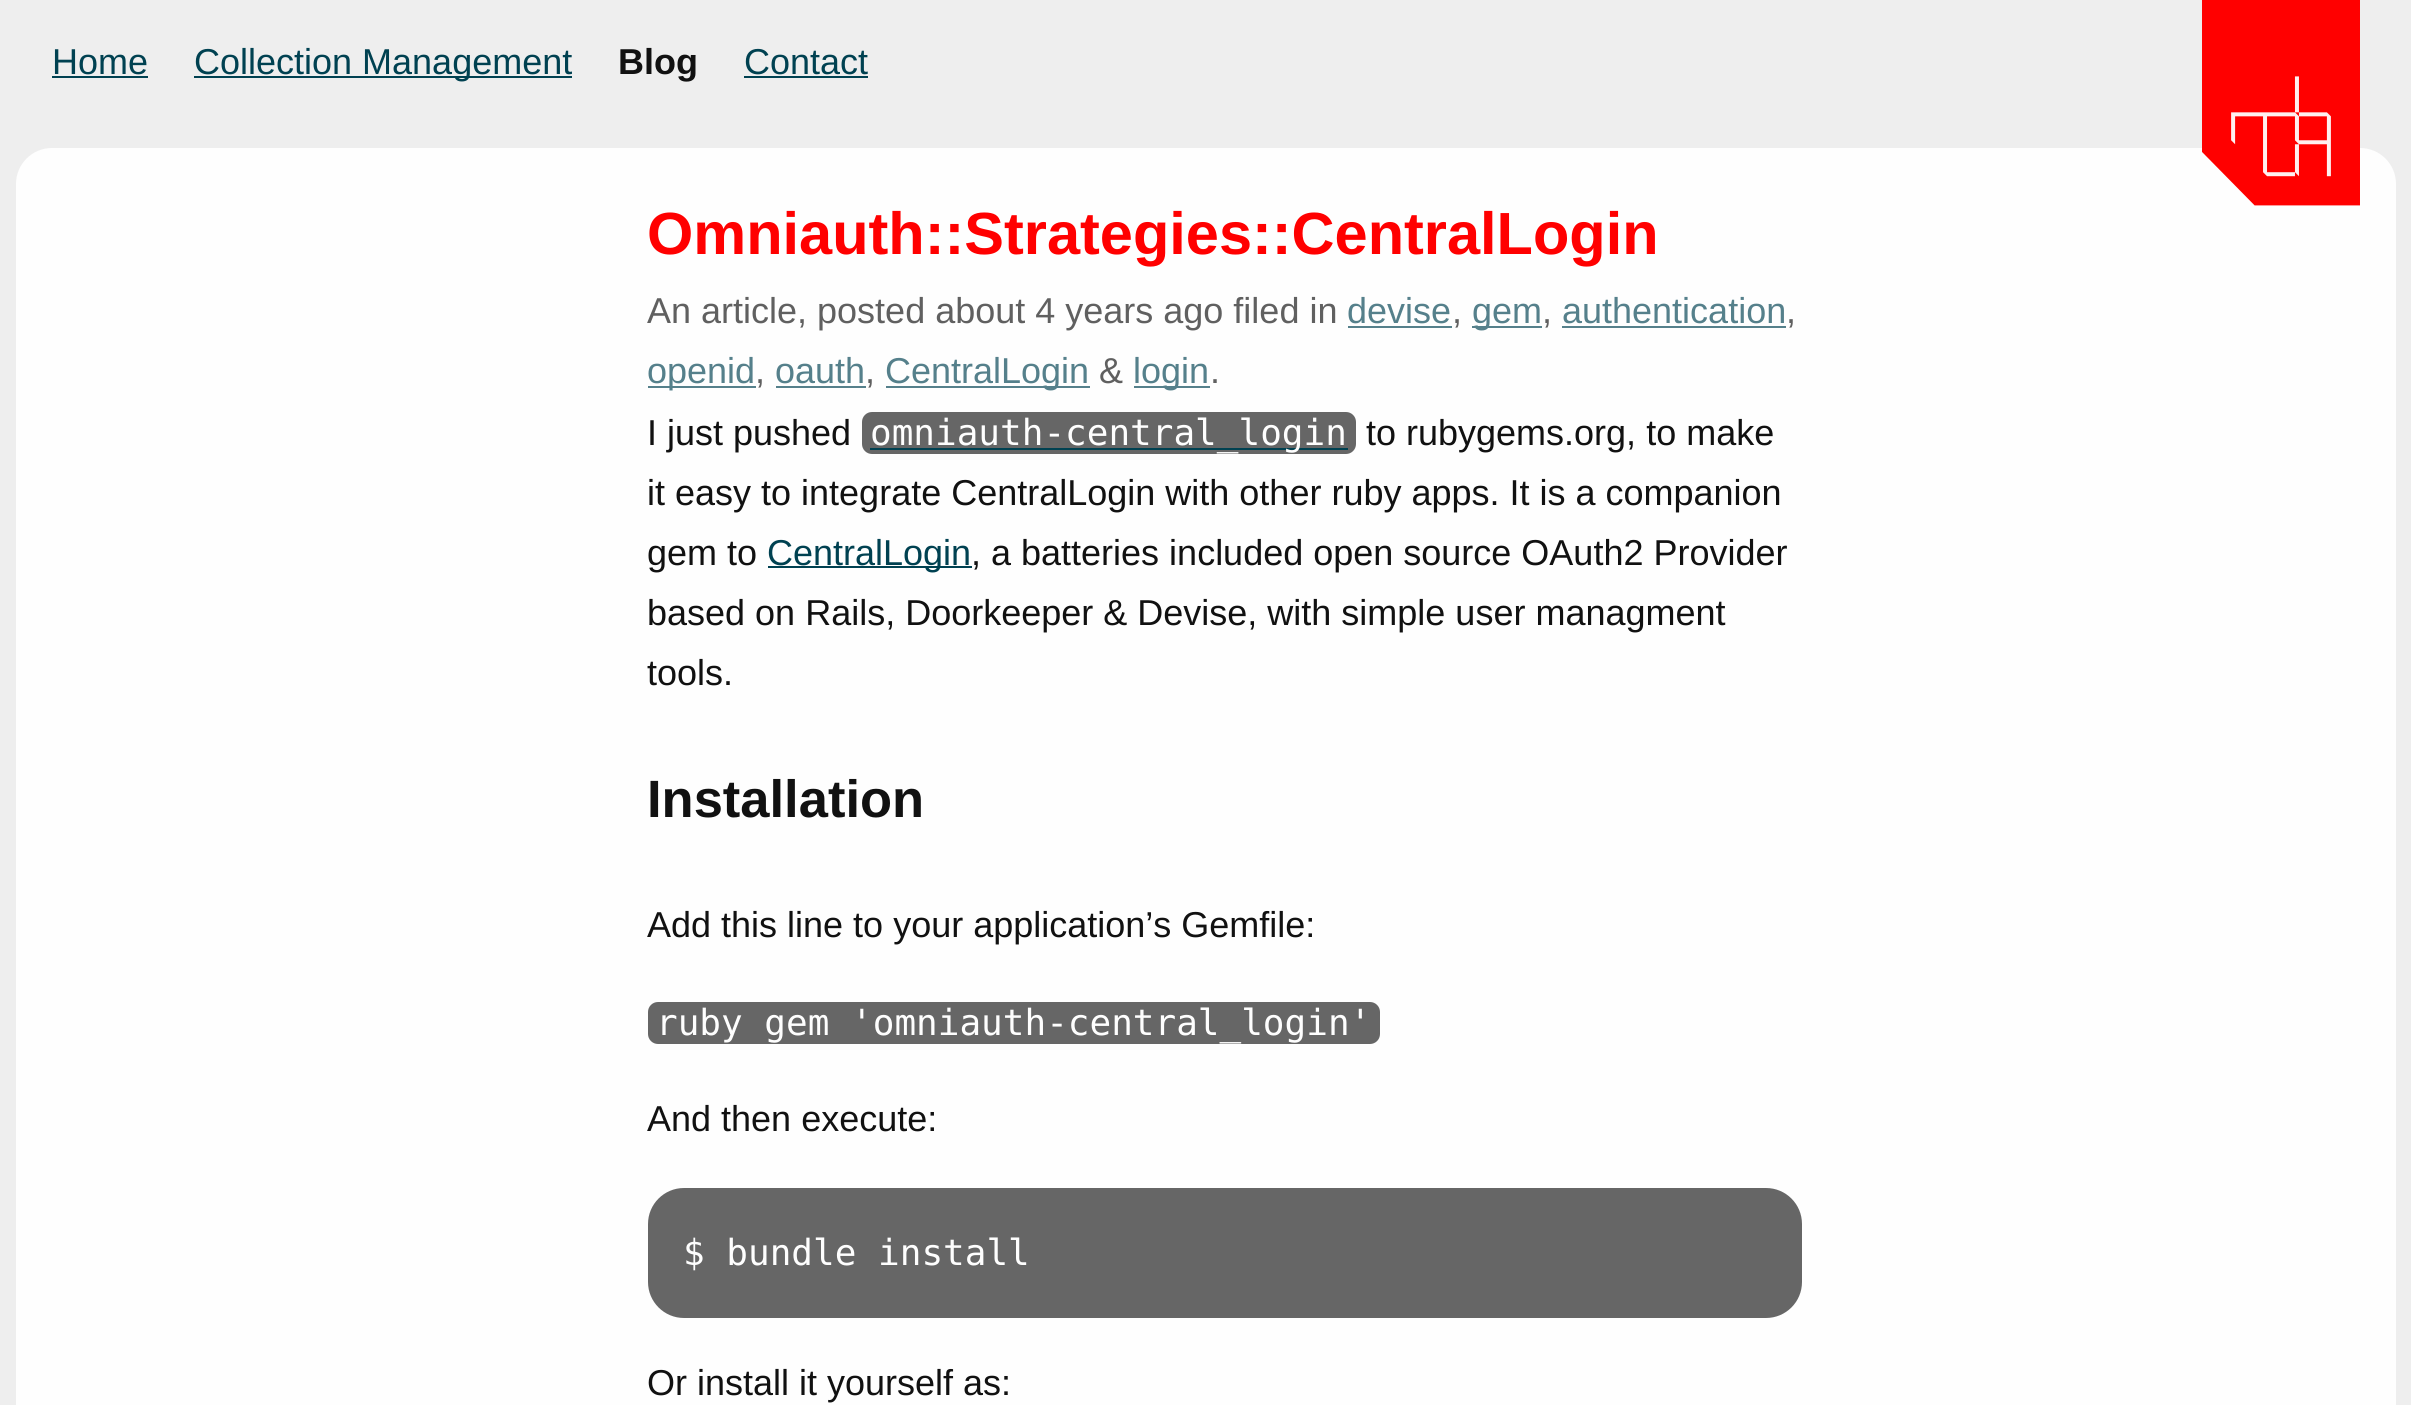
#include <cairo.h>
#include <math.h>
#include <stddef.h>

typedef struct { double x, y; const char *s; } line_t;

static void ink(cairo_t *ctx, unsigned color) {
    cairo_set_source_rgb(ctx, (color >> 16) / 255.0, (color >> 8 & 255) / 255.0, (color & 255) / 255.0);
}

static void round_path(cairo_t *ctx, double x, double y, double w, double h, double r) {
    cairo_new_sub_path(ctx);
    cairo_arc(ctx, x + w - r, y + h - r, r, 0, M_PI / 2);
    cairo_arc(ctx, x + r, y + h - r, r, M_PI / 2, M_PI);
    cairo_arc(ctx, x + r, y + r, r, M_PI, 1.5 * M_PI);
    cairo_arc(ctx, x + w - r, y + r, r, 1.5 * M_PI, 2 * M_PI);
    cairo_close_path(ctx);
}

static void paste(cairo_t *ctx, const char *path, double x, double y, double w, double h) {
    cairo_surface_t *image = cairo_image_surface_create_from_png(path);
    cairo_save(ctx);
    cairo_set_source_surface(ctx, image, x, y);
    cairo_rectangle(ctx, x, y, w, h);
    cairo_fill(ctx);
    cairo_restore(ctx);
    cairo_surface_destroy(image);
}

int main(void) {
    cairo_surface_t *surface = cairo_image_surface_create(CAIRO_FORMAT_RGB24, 2411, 1405);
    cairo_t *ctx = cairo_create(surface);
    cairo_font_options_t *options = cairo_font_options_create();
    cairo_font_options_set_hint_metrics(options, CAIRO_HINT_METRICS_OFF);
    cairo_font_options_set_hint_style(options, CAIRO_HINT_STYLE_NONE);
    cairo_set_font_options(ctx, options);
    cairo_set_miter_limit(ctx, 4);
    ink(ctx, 0xEEEEEE);
    cairo_paint(ctx);
    cairo_select_font_face(ctx, "Liberation Sans", CAIRO_FONT_SLANT_NORMAL, CAIRO_FONT_WEIGHT_NORMAL);
    cairo_set_font_size(ctx, 36);
    ink(ctx, 0x004151);
    cairo_move_to(ctx, 52, 74);
    cairo_show_text(ctx, "Home");
    cairo_rectangle(ctx, 52, 76, 96, 2);
    cairo_fill(ctx);
    cairo_rectangle(ctx, 194, 76, 378, 2);
    cairo_fill(ctx);
    cairo_move_to(ctx, 194, 74);
    cairo_show_text(ctx, "Collection Management");
    cairo_select_font_face(ctx, "Liberation Sans", CAIRO_FONT_SLANT_NORMAL, CAIRO_FONT_WEIGHT_BOLD);
    ink(ctx, 0x111111);
    cairo_move_to(ctx, 618, 74);
    cairo_show_text(ctx, "Blog");
    cairo_select_font_face(ctx, "Liberation Sans", CAIRO_FONT_SLANT_NORMAL, CAIRO_FONT_WEIGHT_NORMAL);
    ink(ctx, 0x004151);
    cairo_move_to(ctx, 744, 74);
    cairo_show_text(ctx, "Contact");
    cairo_rectangle(ctx, 744, 76, 124, 2);
    cairo_fill(ctx);
    ink(ctx, 0xFEFEFE);
    round_path(ctx, 16, 148, 2380, 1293, 36);
    cairo_fill(ctx);
    paste(ctx, "media/1.png", 2202, 0, 158, 206);
    cairo_select_font_face(ctx, "Liberation Sans", CAIRO_FONT_SLANT_NORMAL, CAIRO_FONT_WEIGHT_BOLD);
    cairo_set_font_size(ctx, 59.5);
    ink(ctx, 0xFF0000);
    cairo_move_to(ctx, 647, 254);
    cairo_show_text(ctx, "Omniauth::Strategies::CentralLogin");
    cairo_select_font_face(ctx, "Liberation Sans", CAIRO_FONT_SLANT_NORMAL, CAIRO_FONT_WEIGHT_NORMAL);
    cairo_set_font_size(ctx, 36);
    ink(ctx, 0x606060);
    cairo_move_to(ctx, 647, 323);
    cairo_show_text(ctx, "An article, posted about 4 years ago filed in");
    ink(ctx, 0x55808B);
    cairo_move_to(ctx, 1347, 323);
    cairo_show_text(ctx, "devise");
    cairo_rectangle(ctx, 1348, 326, 104, 2);
    cairo_fill(ctx);
    ink(ctx, 0x606060);
    cairo_move_to(ctx, 1452, 323);
    cairo_show_text(ctx, ",");
    ink(ctx, 0x55808B);
    cairo_rectangle(ctx, 1472, 326, 70, 2);
    cairo_fill(ctx);
    cairo_move_to(ctx, 1472, 323);
    cairo_show_text(ctx, "gem");
    ink(ctx, 0x606060);
    cairo_move_to(ctx, 1542, 323);
    cairo_show_text(ctx, ",");
    ink(ctx, 0x55808B);
    cairo_move_to(ctx, 1562, 323);
    cairo_show_text(ctx, "authentication");
    cairo_rectangle(ctx, 1562, 326, 224, 2);
    cairo_fill(ctx);
    ink(ctx, 0x606060);
    cairo_move_to(ctx, 1786, 323);
    cairo_show_text(ctx, ",");
    ink(ctx, 0x55808B);
    cairo_rectangle(ctx, 648, 386, 108, 2);
    cairo_fill(ctx);
    cairo_move_to(ctx, 647, 383);
    cairo_show_text(ctx, "openid");
    ink(ctx, 0x606060);
    cairo_move_to(ctx, 755, 383);
    cairo_show_text(ctx, ",");
    ink(ctx, 0x55808B);
    cairo_move_to(ctx, 775, 383);
    cairo_show_text(ctx, "oauth");
    cairo_rectangle(ctx, 776, 386, 90, 2);
    cairo_fill(ctx);
    ink(ctx, 0x606060);
    cairo_move_to(ctx, 865, 383);
    cairo_show_text(ctx, ",");
    ink(ctx, 0x55808B);
    cairo_rectangle(ctx, 886, 386, 204, 2);
    cairo_fill(ctx);
    cairo_move_to(ctx, 885, 383);
    cairo_show_text(ctx, "CentralLogin");
    ink(ctx, 0x606060);
    cairo_move_to(ctx, 1099, 383);
    cairo_show_text(ctx, "&");
    ink(ctx, 0x55808B);
    cairo_rectangle(ctx, 1134, 386, 76, 2);
    cairo_fill(ctx);
    cairo_move_to(ctx, 1133, 383);
    cairo_show_text(ctx, "login");
    ink(ctx, 0x606060);
    cairo_move_to(ctx, 1210, 383);
    cairo_show_text(ctx, ".");
    ink(ctx, 0x111111);
    cairo_move_to(ctx, 647, 445);
    cairo_show_text(ctx, "I just pushed");
    ink(ctx, 0x666666);
    round_path(ctx, 862, 412, 494, 42, 10);
    cairo_fill(ctx);
    ink(ctx, 0x004151);
    cairo_rectangle(ctx, 870, 448, 478, 2);
    cairo_fill(ctx);
    cairo_select_font_face(ctx, "DejaVu Sans Mono", CAIRO_FONT_SLANT_NORMAL, CAIRO_FONT_WEIGHT_NORMAL);
    ink(ctx, 0xFEFEFE);
    cairo_move_to(ctx, 870, 445);
    cairo_show_text(ctx, "omniauth-central_login");
    cairo_select_font_face(ctx, "Liberation Sans", CAIRO_FONT_SLANT_NORMAL, CAIRO_FONT_WEIGHT_NORMAL);
    ink(ctx, 0x111111);
    {
        static const line_t items[] = {
            {1366, 445, "to rubygems.org, to make"},
            {647, 505, "it easy to integrate CentralLogin with other ruby apps. It is a companion"},
            {647, 565, "gem to"},
        };
        for (size_t i = 0; i < sizeof items / sizeof *items; i++) {
            cairo_move_to(ctx, items[i].x, items[i].y);
            cairo_show_text(ctx, items[i].s);
        }
    }
    ink(ctx, 0x004151);
    cairo_rectangle(ctx, 768, 566, 204, 2);
    cairo_fill(ctx);
    cairo_move_to(ctx, 767, 565);
    cairo_show_text(ctx, "CentralLogin");
    ink(ctx, 0x111111);
    {
        static const line_t items[] = {
            {971, 565, ", a batteries included open source OAuth2 Provider"},
            {647, 625, "based on Rails, Doorkeeper & Devise, with simple user managment"},
            {647, 685, "tools."},
        };
        for (size_t i = 0; i < sizeof items / sizeof *items; i++) {
            cairo_move_to(ctx, items[i].x, items[i].y);
            cairo_show_text(ctx, items[i].s);
        }
    }
    cairo_select_font_face(ctx, "Liberation Sans", CAIRO_FONT_SLANT_NORMAL, CAIRO_FONT_WEIGHT_BOLD);
    cairo_set_font_size(ctx, 52.5);
    cairo_move_to(ctx, 647, 817);
    cairo_show_text(ctx, "Installation");
    cairo_select_font_face(ctx, "Liberation Sans", CAIRO_FONT_SLANT_NORMAL, CAIRO_FONT_WEIGHT_NORMAL);
    cairo_set_font_size(ctx, 36);
    cairo_move_to(ctx, 647, 937);
    cairo_show_text(ctx, "Add this line to your application’s Gemfile:");
    ink(ctx, 0x666666);
    round_path(ctx, 648, 1002, 732, 42, 10);
    cairo_fill(ctx);
    cairo_select_font_face(ctx, "DejaVu Sans Mono", CAIRO_FONT_SLANT_NORMAL, CAIRO_FONT_WEIGHT_NORMAL);
    ink(ctx, 0xFEFEFE);
    cairo_move_to(ctx, 656, 1035);
    cairo_show_text(ctx, "ruby gem 'omniauth-central_login'");
    cairo_select_font_face(ctx, "Liberation Sans", CAIRO_FONT_SLANT_NORMAL, CAIRO_FONT_WEIGHT_NORMAL);
    ink(ctx, 0x111111);
    cairo_move_to(ctx, 647, 1131);
    cairo_show_text(ctx, "And then execute:");
    ink(ctx, 0x666666);
    round_path(ctx, 648, 1188, 1154, 130, 36);
    cairo_fill(ctx);
    cairo_select_font_face(ctx, "DejaVu Sans Mono", CAIRO_FONT_SLANT_NORMAL, CAIRO_FONT_WEIGHT_NORMAL);
    ink(ctx, 0xFEFEFE);
    cairo_move_to(ctx, 683, 1265);
    cairo_show_text(ctx, "$ bundle install");
    cairo_select_font_face(ctx, "Liberation Sans", CAIRO_FONT_SLANT_NORMAL, CAIRO_FONT_WEIGHT_NORMAL);
    ink(ctx, 0x111111);
    cairo_move_to(ctx, 647, 1395);
    cairo_show_text(ctx, "Or install it yourself as:");
    cairo_surface_write_to_png(surface, "image.png");
    cairo_font_options_destroy(options);
    cairo_destroy(ctx);
    cairo_surface_destroy(surface);
    return 0;
}
